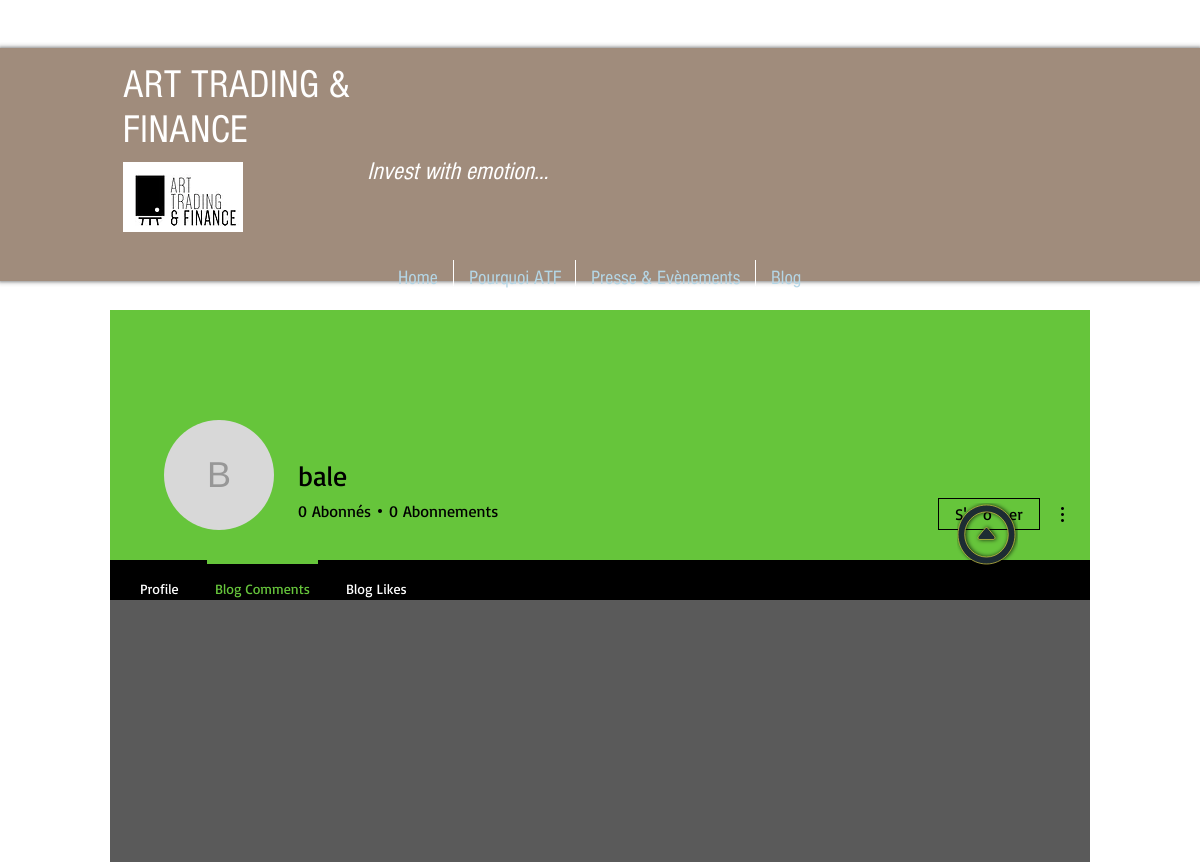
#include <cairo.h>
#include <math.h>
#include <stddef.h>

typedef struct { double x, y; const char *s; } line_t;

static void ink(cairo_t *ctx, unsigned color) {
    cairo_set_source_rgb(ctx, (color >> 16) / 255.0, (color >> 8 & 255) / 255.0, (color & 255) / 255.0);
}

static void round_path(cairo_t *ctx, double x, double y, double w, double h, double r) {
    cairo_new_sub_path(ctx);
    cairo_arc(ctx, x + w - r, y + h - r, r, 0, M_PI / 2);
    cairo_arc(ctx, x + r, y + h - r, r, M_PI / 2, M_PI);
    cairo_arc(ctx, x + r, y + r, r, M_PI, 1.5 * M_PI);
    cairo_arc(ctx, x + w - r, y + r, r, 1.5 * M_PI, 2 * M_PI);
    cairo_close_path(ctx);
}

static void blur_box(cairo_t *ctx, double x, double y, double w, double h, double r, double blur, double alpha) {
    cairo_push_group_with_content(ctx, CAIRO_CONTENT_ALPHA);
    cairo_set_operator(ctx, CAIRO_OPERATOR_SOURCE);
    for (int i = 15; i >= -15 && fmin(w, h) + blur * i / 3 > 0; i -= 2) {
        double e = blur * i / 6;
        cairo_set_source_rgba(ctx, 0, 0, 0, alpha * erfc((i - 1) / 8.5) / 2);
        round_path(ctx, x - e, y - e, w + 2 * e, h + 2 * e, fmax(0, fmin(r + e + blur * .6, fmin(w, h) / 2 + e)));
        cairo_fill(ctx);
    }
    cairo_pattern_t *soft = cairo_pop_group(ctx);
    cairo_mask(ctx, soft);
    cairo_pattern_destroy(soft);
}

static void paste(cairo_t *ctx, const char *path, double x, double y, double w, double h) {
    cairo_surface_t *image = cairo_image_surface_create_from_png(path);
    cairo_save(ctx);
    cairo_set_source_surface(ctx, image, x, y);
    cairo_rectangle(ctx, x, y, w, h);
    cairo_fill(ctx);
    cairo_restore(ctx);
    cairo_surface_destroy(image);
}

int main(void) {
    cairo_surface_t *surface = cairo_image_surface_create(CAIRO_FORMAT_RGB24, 1200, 862);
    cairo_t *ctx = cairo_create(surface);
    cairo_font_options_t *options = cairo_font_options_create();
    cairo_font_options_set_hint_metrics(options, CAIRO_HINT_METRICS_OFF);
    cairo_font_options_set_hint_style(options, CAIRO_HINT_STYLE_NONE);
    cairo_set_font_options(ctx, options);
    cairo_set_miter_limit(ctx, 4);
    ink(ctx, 0xFFFFFF);
    cairo_paint(ctx);
    ink(ctx, 0x000000);
    blur_box(ctx, 0, 48, 1200, 233, 0, 2.5, 0.7);
    ink(ctx, 0xA08C7C);
    cairo_rectangle(ctx, 0, 48, 1200, 233);
    cairo_fill(ctx);
    cairo_select_font_face(ctx, "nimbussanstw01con", CAIRO_FONT_SLANT_NORMAL, CAIRO_FONT_WEIGHT_NORMAL);
    cairo_set_font_size(ctx, 40);
    ink(ctx, 0xFFFFFF);
    cairo_move_to(ctx, 123, 97);
    cairo_show_text(ctx, "ART TRADING &");
    cairo_move_to(ctx, 123, 142);
    cairo_show_text(ctx, "FINANCE");
    paste(ctx, "media/1.png", 123, 162, 120, 70);
    cairo_select_font_face(ctx, "nimbussanstw01con", CAIRO_FONT_SLANT_ITALIC, CAIRO_FONT_WEIGHT_NORMAL);
    cairo_set_font_size(ctx, 25);
    cairo_move_to(ctx, 367, 179);
    cairo_show_text(ctx, "Invest with emotion...");
    cairo_select_font_face(ctx, "nimbussanstw01con", CAIRO_FONT_SLANT_NORMAL, CAIRO_FONT_WEIGHT_NORMAL);
    cairo_set_font_size(ctx, 20);
    ink(ctx, 0xB4D6E6);
    cairo_move_to(ctx, 398, 284);
    cairo_show_text(ctx, "Home");
    ink(ctx, 0xFFFFFF);
    cairo_rectangle(ctx, 453, 260, 1, 26);
    cairo_fill(ctx);
    ink(ctx, 0xB4D6E6);
    cairo_move_to(ctx, 469, 284);
    cairo_show_text(ctx, "Pourquoi ATF");
    ink(ctx, 0xFFFFFF);
    cairo_rectangle(ctx, 575, 260, 1, 26);
    cairo_fill(ctx);
    ink(ctx, 0xB4D6E6);
    cairo_move_to(ctx, 591, 284);
    cairo_show_text(ctx, "Presse & Evènements");
    ink(ctx, 0xFFFFFF);
    cairo_rectangle(ctx, 755, 260, 1, 26);
    cairo_fill(ctx);
    ink(ctx, 0xB4D6E6);
    cairo_move_to(ctx, 771, 284);
    cairo_show_text(ctx, "Blog");
    ink(ctx, 0x66C53B);
    cairo_rectangle(ctx, 110, 310, 980, 250);
    cairo_fill(ctx);
    ink(ctx, 0xD8D8D8);
    cairo_arc(ctx, 219, 475, 55, 0, 2 * M_PI);
    cairo_fill(ctx);
    cairo_select_font_face(ctx, "Liberation Sans", CAIRO_FONT_SLANT_NORMAL, CAIRO_FONT_WEIGHT_NORMAL);
    cairo_set_font_size(ctx, 36);
    ink(ctx, 0x979797);
    cairo_move_to(ctx, 207, 487);
    cairo_show_text(ctx, "B");
    cairo_select_font_face(ctx, "Basic", CAIRO_FONT_SLANT_NORMAL, CAIRO_FONT_WEIGHT_NORMAL);
    cairo_set_font_size(ctx, 28);
    ink(ctx, 0x000000);
    cairo_move_to(ctx, 298, 486);
    cairo_show_text(ctx, "bale");
    cairo_set_font_size(ctx, 16);
    cairo_move_to(ctx, 298, 517);
    cairo_show_text(ctx, "0");
    cairo_move_to(ctx, 312, 517);
    cairo_show_text(ctx, "Abonnés");
    cairo_new_path(ctx);
    cairo_arc(ctx, 380, 511, 2, 0, 2 * M_PI);
    cairo_fill(ctx);
    cairo_move_to(ctx, 389, 517);
    cairo_show_text(ctx, "0");
    cairo_move_to(ctx, 403, 517);
    cairo_show_text(ctx, "Abonnements");
    cairo_rectangle(ctx, 938.5, 498.5, 101, 31);
    cairo_set_line_width(ctx, 1);
    cairo_stroke(ctx);
    {
        static const line_t items[] = {
            {955, 520, "S'"},
            {983, 520, "o"},
            {1009, 520, "er"},
        };
        for (size_t i = 0; i < sizeof items / sizeof *items; i++) {
            cairo_move_to(ctx, items[i].x, items[i].y);
            cairo_show_text(ctx, items[i].s);
        }
    }
    paste(ctx, "media/2.png", 1061, 507, 3, 15);
    cairo_rectangle(ctx, 110, 560, 980, 40);
    cairo_fill(ctx);
    cairo_set_font_size(ctx, 14);
    ink(ctx, 0xFFFFFF);
    cairo_move_to(ctx, 140, 594);
    cairo_show_text(ctx, "Profile");
    ink(ctx, 0x66C53B);
    cairo_rectangle(ctx, 207, 560, 111, 4);
    cairo_fill(ctx);
    cairo_move_to(ctx, 215, 594);
    cairo_show_text(ctx, "Blog Comments");
    ink(ctx, 0xFFFFFF);
    cairo_move_to(ctx, 346, 594);
    cairo_show_text(ctx, "Blog Likes");
    paste(ctx, "media/3.png", 957, 503, 61, 62);
    ink(ctx, 0x5A5A5A);
    cairo_rectangle(ctx, 110, 600, 980, 262);
    cairo_fill(ctx);
    cairo_surface_write_to_png(surface, "image.png");
    cairo_font_options_destroy(options);
    cairo_destroy(ctx);
    cairo_surface_destroy(surface);
    return 0;
}
